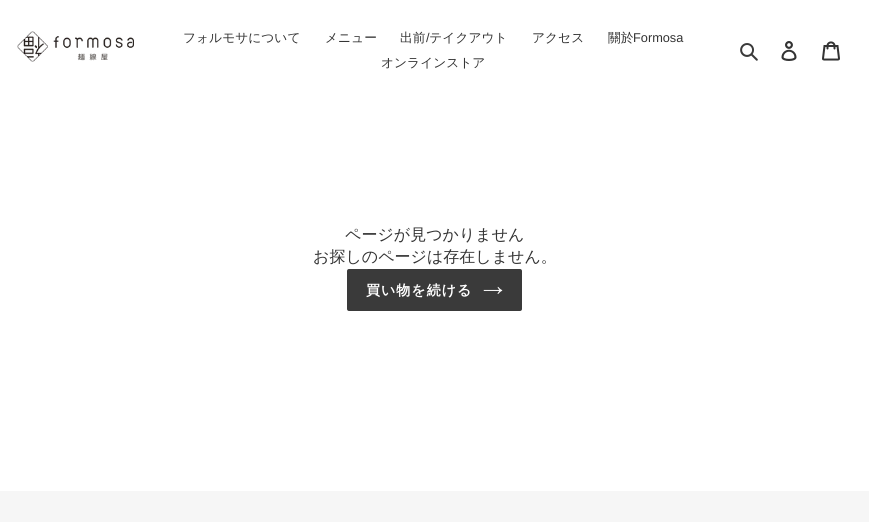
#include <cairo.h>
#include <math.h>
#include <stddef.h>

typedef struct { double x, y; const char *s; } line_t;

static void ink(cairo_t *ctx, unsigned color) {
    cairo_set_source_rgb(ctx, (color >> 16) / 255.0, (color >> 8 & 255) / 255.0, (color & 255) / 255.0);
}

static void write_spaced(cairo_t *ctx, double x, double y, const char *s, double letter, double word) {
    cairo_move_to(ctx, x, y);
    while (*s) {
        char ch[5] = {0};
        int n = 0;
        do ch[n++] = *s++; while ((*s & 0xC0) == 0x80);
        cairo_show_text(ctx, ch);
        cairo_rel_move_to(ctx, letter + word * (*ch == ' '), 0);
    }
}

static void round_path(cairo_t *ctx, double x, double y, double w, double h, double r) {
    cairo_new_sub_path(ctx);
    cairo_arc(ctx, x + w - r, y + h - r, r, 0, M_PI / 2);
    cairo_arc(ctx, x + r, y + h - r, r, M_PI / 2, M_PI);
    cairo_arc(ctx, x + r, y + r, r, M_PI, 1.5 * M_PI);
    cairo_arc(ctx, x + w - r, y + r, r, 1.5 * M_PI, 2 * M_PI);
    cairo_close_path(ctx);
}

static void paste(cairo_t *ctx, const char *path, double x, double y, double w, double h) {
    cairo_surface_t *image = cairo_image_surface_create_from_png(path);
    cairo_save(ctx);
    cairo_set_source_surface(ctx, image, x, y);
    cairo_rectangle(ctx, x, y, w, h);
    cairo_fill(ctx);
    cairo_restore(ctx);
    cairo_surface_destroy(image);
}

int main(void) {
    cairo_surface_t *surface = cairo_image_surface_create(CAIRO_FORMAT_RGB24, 869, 522);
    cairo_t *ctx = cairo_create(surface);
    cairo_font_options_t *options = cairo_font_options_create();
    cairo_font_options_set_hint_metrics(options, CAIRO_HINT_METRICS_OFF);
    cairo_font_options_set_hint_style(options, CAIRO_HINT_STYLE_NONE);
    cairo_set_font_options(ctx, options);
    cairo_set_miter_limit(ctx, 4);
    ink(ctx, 0xFFFFFF);
    cairo_paint(ctx);
    paste(ctx, "media/1.png", 17, 31, 117, 31);
    cairo_select_font_face(ctx, "WenQuanYi Zen Hei Medium", CAIRO_FONT_SLANT_NORMAL, CAIRO_FONT_WEIGHT_NORMAL);
    cairo_set_font_size(ctx, 12.75);
    ink(ctx, 0x333333);
    {
        static const line_t items[] = {
            {183, 42, "フォルモサについて"},
            {325, 42, "メニュー"},
            {400, 42, "出前 テイクアウト"},
        };
        for (size_t i = 0; i < sizeof items / sizeof *items; i++) {
            cairo_move_to(ctx, items[i].x, items[i].y);
            cairo_show_text(ctx, items[i].s);
        }
    }
    cairo_select_font_face(ctx, "Liberation Sans", CAIRO_FONT_SLANT_NORMAL, CAIRO_FONT_WEIGHT_NORMAL);
    cairo_move_to(ctx, 426, 42);
    cairo_show_text(ctx, "/");
    cairo_select_font_face(ctx, "WenQuanYi Zen Hei Medium", CAIRO_FONT_SLANT_NORMAL, CAIRO_FONT_WEIGHT_NORMAL);
    cairo_move_to(ctx, 532, 42);
    cairo_show_text(ctx, "アクセス");
    cairo_move_to(ctx, 608, 42);
    cairo_show_text(ctx, "關於");
    cairo_select_font_face(ctx, "Liberation Sans", CAIRO_FONT_SLANT_NORMAL, CAIRO_FONT_WEIGHT_NORMAL);
    cairo_move_to(ctx, 633, 42);
    cairo_show_text(ctx, "Formosa");
    cairo_select_font_face(ctx, "WenQuanYi Zen Hei Medium", CAIRO_FONT_SLANT_NORMAL, CAIRO_FONT_WEIGHT_NORMAL);
    cairo_move_to(ctx, 381, 67);
    cairo_show_text(ctx, "オンラインストア");
    paste(ctx, "media/2.png", 740, 43, 18, 18);
    paste(ctx, "media/3.png", 781, 41, 16, 20);
    paste(ctx, "media/4.png", 822, 41, 18, 20);
    cairo_set_font_size(ctx, 16);
    cairo_move_to(ctx, 345, 240);
    cairo_show_text(ctx, "ページが見つかりません");
    cairo_move_to(ctx, 313, 262);
    cairo_show_text(ctx, "お探しのページは存在しません。");
    ink(ctx, 0x3A3A3A);
    round_path(ctx, 347, 269, 175, 42, 2);
    cairo_fill(ctx);
    cairo_select_font_face(ctx, "WenQuanYi Zen Hei", CAIRO_FONT_SLANT_NORMAL, CAIRO_FONT_WEIGHT_BOLD);
    cairo_set_font_size(ctx, 14);
    ink(ctx, 0xFFFFFF);
    write_spaced(ctx, 366, 295, "買い物を続ける", 1, 0);
    paste(ctx, "media/5.png", 483, 286, 20, 8);
    ink(ctx, 0xF6F6F6);
    cairo_rectangle(ctx, 0, 491, 869, 31);
    cairo_fill(ctx);
    cairo_surface_write_to_png(surface, "image.png");
    cairo_font_options_destroy(options);
    cairo_destroy(ctx);
    cairo_surface_destroy(surface);
    return 0;
}
